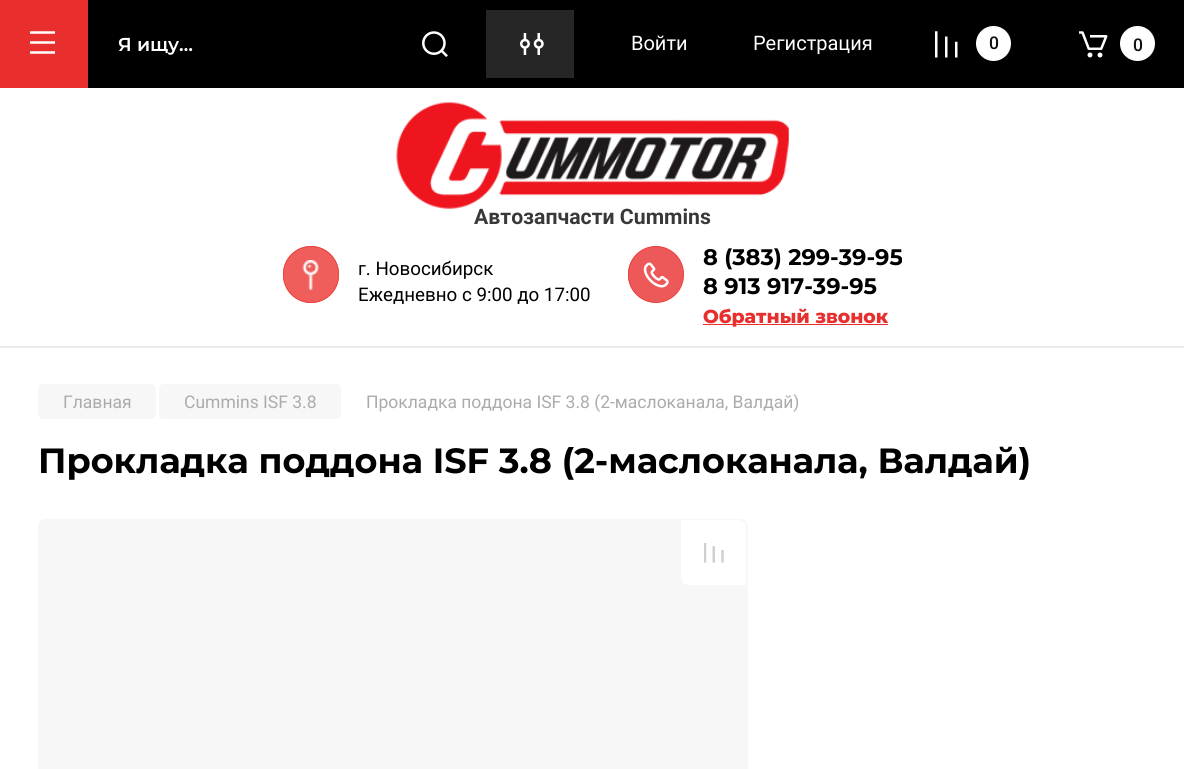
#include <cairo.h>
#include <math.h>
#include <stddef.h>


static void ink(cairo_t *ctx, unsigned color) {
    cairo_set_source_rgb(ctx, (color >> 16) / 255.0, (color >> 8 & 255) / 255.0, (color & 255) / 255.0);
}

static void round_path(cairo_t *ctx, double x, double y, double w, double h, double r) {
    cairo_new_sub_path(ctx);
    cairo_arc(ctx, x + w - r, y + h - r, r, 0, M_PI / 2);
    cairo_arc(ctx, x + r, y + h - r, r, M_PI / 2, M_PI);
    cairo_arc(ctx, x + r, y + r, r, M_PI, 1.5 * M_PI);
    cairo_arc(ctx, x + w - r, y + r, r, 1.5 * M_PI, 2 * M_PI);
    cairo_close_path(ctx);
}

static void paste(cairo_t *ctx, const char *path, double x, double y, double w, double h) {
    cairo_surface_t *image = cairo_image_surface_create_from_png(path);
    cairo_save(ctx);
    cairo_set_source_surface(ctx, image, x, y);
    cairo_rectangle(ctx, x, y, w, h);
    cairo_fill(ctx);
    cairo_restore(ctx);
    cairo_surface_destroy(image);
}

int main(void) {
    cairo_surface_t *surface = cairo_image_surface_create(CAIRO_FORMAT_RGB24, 1184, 769);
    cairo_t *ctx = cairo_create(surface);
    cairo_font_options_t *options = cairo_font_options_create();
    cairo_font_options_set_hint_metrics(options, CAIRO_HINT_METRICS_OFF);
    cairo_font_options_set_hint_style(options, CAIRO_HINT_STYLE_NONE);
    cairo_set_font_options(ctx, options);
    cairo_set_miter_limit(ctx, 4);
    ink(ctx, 0xFFFFFF);
    cairo_paint(ctx);
    ink(ctx, 0xE92E2E);
    cairo_rectangle(ctx, 0, 0, 88, 88);
    cairo_fill(ctx);
    paste(ctx, "media/1.png", 30, 31, 25, 23);
    ink(ctx, 0x000000);
    cairo_rectangle(ctx, 88, 0, 1096, 88);
    cairo_fill(ctx);
    cairo_select_font_face(ctx, "Montserrat SemiBold", CAIRO_FONT_SLANT_NORMAL, CAIRO_FONT_WEIGHT_NORMAL);
    cairo_set_font_size(ctx, 18.75);
    ink(ctx, 0xFFFFFF);
    cairo_move_to(ctx, 118, 51);
    cairo_show_text(ctx, "Я ищу…");
    paste(ctx, "media/2.png", 422, 31, 26, 26);
    ink(ctx, 0x262626);
    cairo_rectangle(ctx, 486, 10, 88, 68);
    cairo_fill(ctx);
    paste(ctx, "media/3.png", 519, 33, 25, 22);
    cairo_select_font_face(ctx, "Roboto", CAIRO_FONT_SLANT_NORMAL, CAIRO_FONT_WEIGHT_NORMAL);
    cairo_set_font_size(ctx, 20);
    ink(ctx, 0xFFFFFF);
    cairo_move_to(ctx, 631, 50);
    cairo_show_text(ctx, "Войти");
    cairo_move_to(ctx, 753, 50);
    cairo_show_text(ctx, "Регистрация");
    paste(ctx, "media/4.png", 935, 31, 23, 27);
    cairo_arc(ctx, 993.5, 43.5, 17.5, 0, 2 * M_PI);
    cairo_fill(ctx);
    cairo_select_font_face(ctx, "Roboto Medium", CAIRO_FONT_SLANT_NORMAL, CAIRO_FONT_WEIGHT_NORMAL);
    cairo_set_font_size(ctx, 17.5);
    ink(ctx, 0x101010);
    cairo_move_to(ctx, 989, 49);
    cairo_show_text(ctx, "0");
    paste(ctx, "media/5.png", 1079, 31, 29, 27);
    ink(ctx, 0xFFFFFF);
    cairo_arc(ctx, 1137.5, 43.5, 17.5, 0, 2 * M_PI);
    cairo_fill(ctx);
    ink(ctx, 0x101010);
    cairo_move_to(ctx, 1133, 51);
    cairo_show_text(ctx, "0");
    ink(ctx, 0xEBEBEB);
    cairo_rectangle(ctx, 0, 346, 1184, 2);
    cairo_fill(ctx);
    paste(ctx, "media/6.png", 396, 102, 393, 107);
    cairo_select_font_face(ctx, "Roboto", CAIRO_FONT_SLANT_NORMAL, CAIRO_FONT_WEIGHT_BOLD);
    cairo_set_font_size(ctx, 21.25);
    ink(ctx, 0x393939);
    cairo_move_to(ctx, 474, 224);
    cairo_show_text(ctx, "Автозапчасти Cummins");
    ink(ctx, 0xEF5E5B);
    round_path(ctx, 283, 246, 56, 57, 28);
    cairo_fill(ctx);
    paste(ctx, "media/7.png", 302, 260, 17, 30);
    round_path(ctx, 283.5, 246.5, 55, 56, 27.5);
    ink(ctx, 0xEC4441);
    cairo_set_line_width(ctx, 1);
    cairo_stroke(ctx);
    cairo_select_font_face(ctx, "Roboto", CAIRO_FONT_SLANT_NORMAL, CAIRO_FONT_WEIGHT_NORMAL);
    cairo_set_font_size(ctx, 18.75);
    ink(ctx, 0x000000);
    cairo_move_to(ctx, 358, 275);
    cairo_show_text(ctx, "г. Новосибирск");
    cairo_move_to(ctx, 358, 301);
    cairo_show_text(ctx, "Ежедневно с 9:00 до 17:00");
    paste(ctx, "media/8.png", 628, 246, 56, 57);
    round_path(ctx, 628.5, 246.5, 55, 56, 27.5);
    ink(ctx, 0xEC4441);
    cairo_stroke(ctx);
    cairo_select_font_face(ctx, "Montserrat", CAIRO_FONT_SLANT_NORMAL, CAIRO_FONT_WEIGHT_BOLD);
    cairo_set_font_size(ctx, 22.5);
    ink(ctx, 0x000000);
    cairo_move_to(ctx, 703, 265);
    cairo_show_text(ctx, "8 (383) 299-39-95");
    cairo_move_to(ctx, 703, 294);
    cairo_show_text(ctx, "8 913 917-39-95");
    ink(ctx, 0xE92E2E);
    cairo_rectangle(ctx, 703, 324, 185, 1);
    cairo_fill(ctx);
    cairo_select_font_face(ctx, "Montserrat ExtraBold", CAIRO_FONT_SLANT_NORMAL, CAIRO_FONT_WEIGHT_NORMAL);
    cairo_set_font_size(ctx, 18.75);
    cairo_move_to(ctx, 703, 323);
    cairo_show_text(ctx, "Обратный звонок");
    ink(ctx, 0xF7F7F7);
    round_path(ctx, 38, 384, 118, 35, 5);
    cairo_fill(ctx);
    cairo_select_font_face(ctx, "Roboto", CAIRO_FONT_SLANT_NORMAL, CAIRO_FONT_WEIGHT_NORMAL);
    cairo_set_font_size(ctx, 17.5);
    ink(ctx, 0xABABAB);
    cairo_move_to(ctx, 63, 408);
    cairo_show_text(ctx, "Главная");
    ink(ctx, 0xF7F7F7);
    round_path(ctx, 159, 384, 182, 35, 5);
    cairo_fill(ctx);
    ink(ctx, 0xABABAB);
    cairo_move_to(ctx, 184, 408);
    cairo_show_text(ctx, "Cummins ISF 3.8");
    cairo_move_to(ctx, 366, 408);
    cairo_show_text(ctx, "Прокладка поддона ISF 3.8 (2-маслоканала, Валдай)");
    cairo_select_font_face(ctx, "Montserrat", CAIRO_FONT_SLANT_NORMAL, CAIRO_FONT_WEIGHT_BOLD);
    cairo_set_font_size(ctx, 35);
    ink(ctx, 0x000000);
    cairo_move_to(ctx, 38, 473);
    cairo_show_text(ctx, "Прокладка поддона ISF 3.8 (2-маслоканала, Валдай)");
    ink(ctx, 0xF7F7F7);
    round_path(ctx, 38, 519, 710, 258, 8);
    cairo_fill(ctx);
    ink(ctx, 0xFFFFFF);
    cairo_new_path(ctx);
    cairo_move_to(ctx, 681, 520);
    cairo_line_to(ctx, 738, 520);
    cairo_curve_to(ctx, 742.5, 520, 746, 523.5, 746, 528);
    cairo_line_to(ctx, 746, 585);
    cairo_line_to(ctx, 689, 585);
    cairo_curve_to(ctx, 684.5, 585, 681, 581.5, 681, 577);
    cairo_close_path(ctx);
    cairo_fill(ctx);
    paste(ctx, "media/9.png", 704, 543, 20, 20);
    cairo_surface_write_to_png(surface, "image.png");
    cairo_font_options_destroy(options);
    cairo_destroy(ctx);
    cairo_surface_destroy(surface);
    return 0;
}
